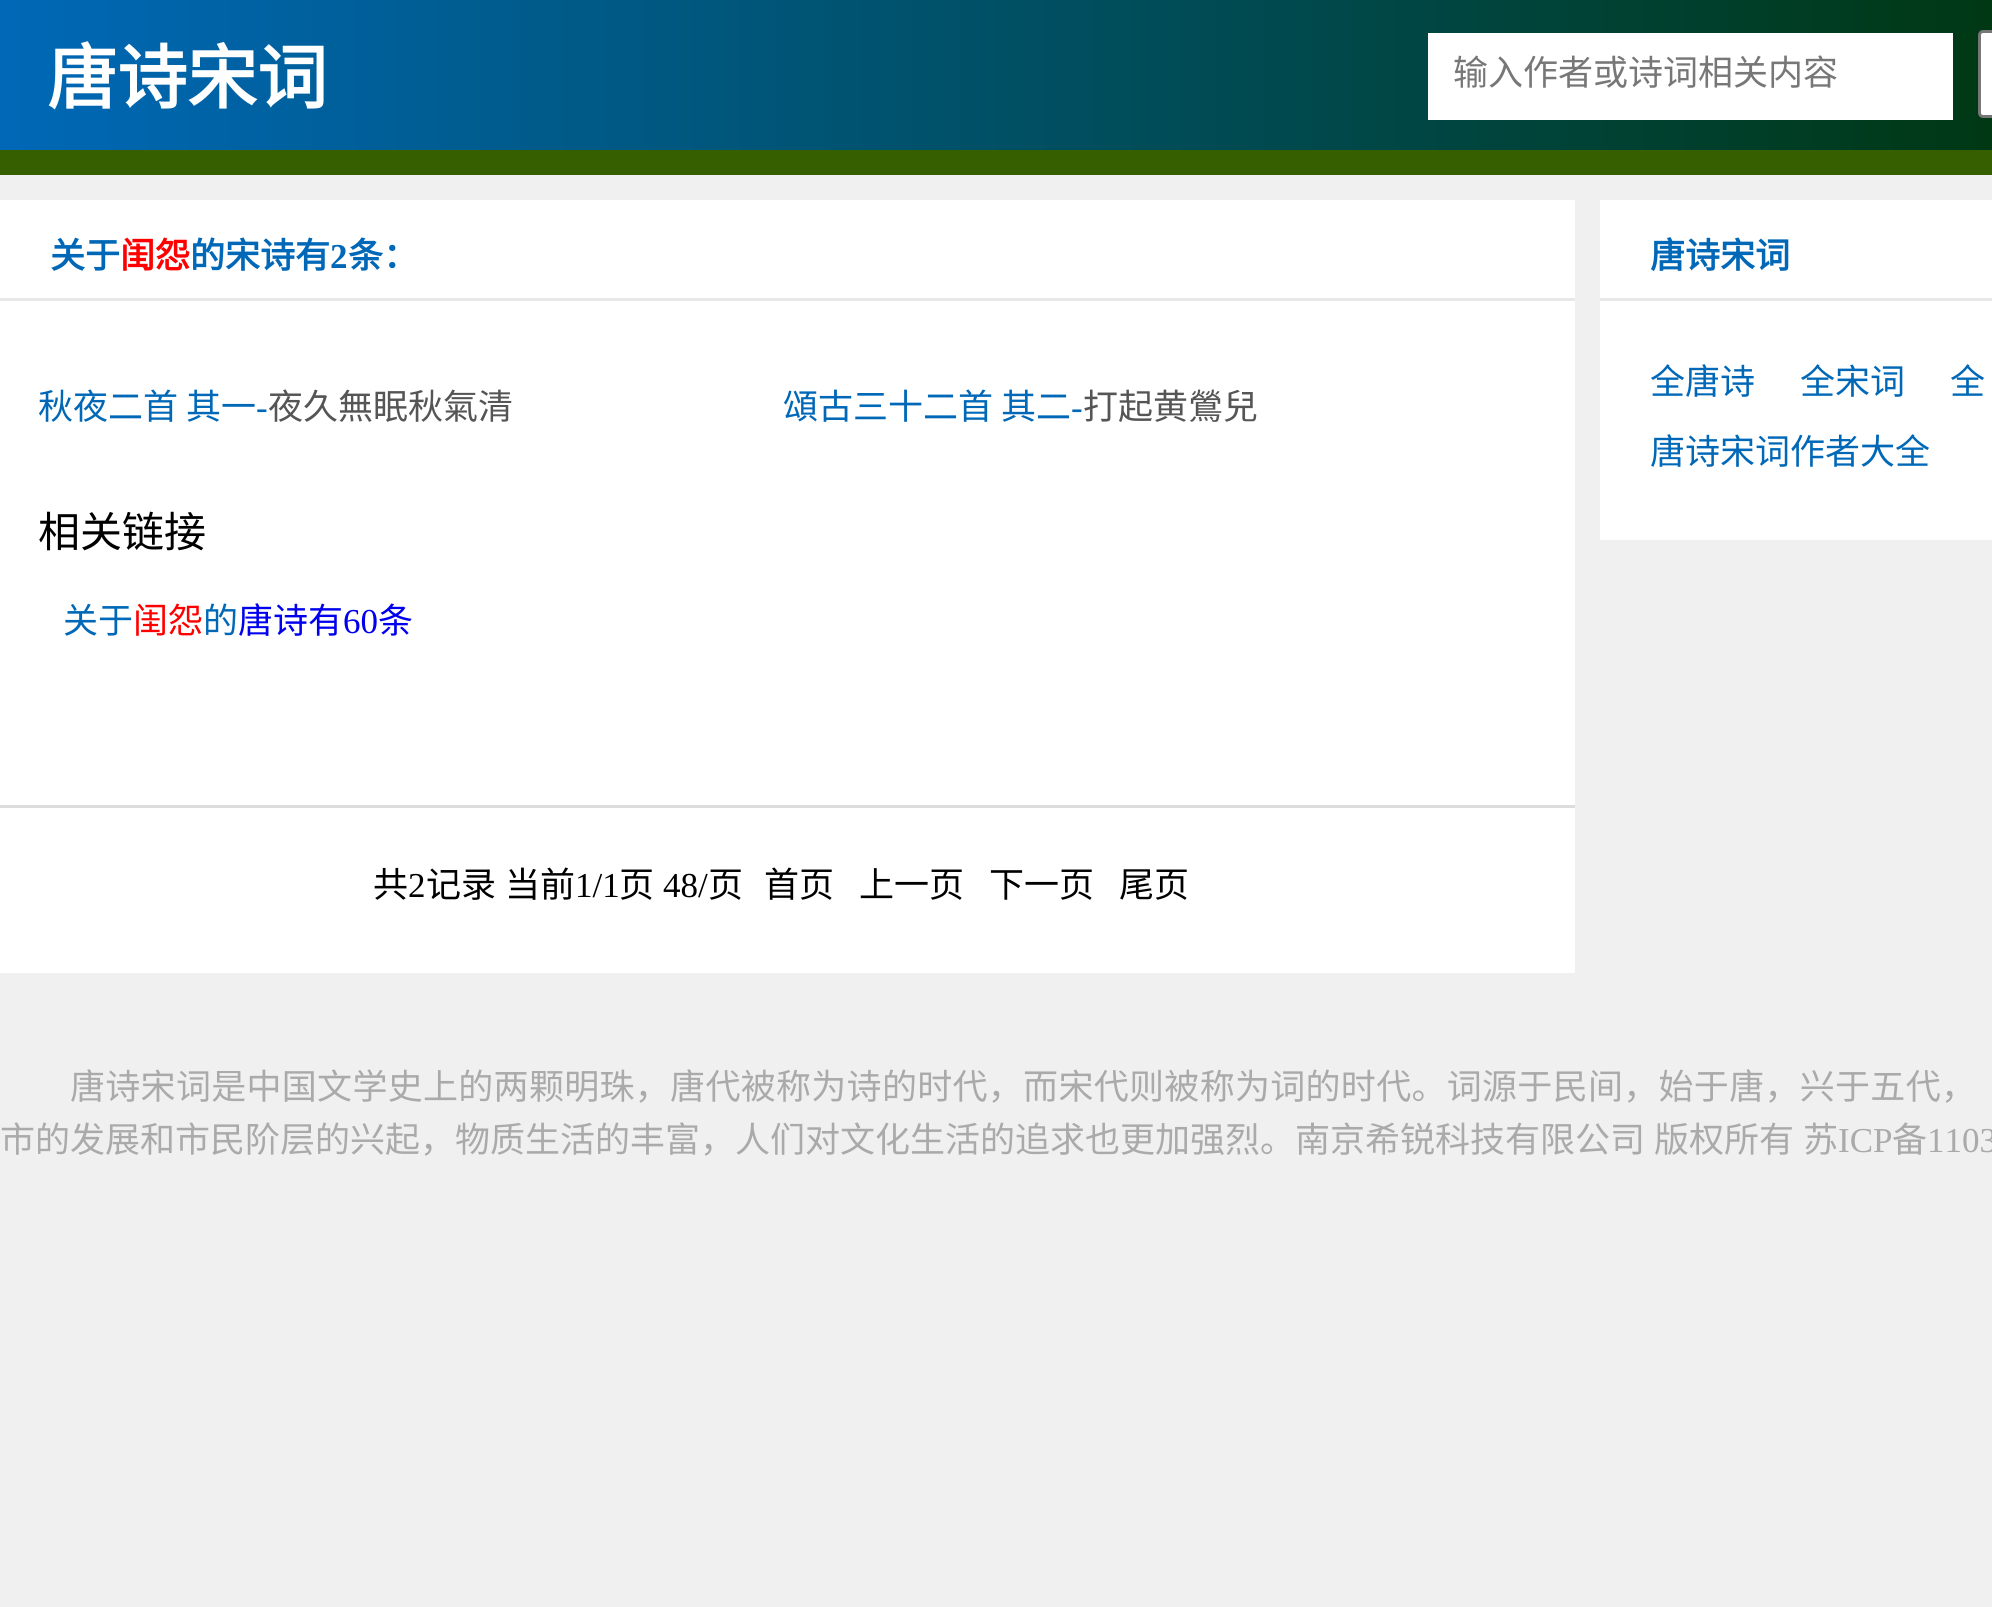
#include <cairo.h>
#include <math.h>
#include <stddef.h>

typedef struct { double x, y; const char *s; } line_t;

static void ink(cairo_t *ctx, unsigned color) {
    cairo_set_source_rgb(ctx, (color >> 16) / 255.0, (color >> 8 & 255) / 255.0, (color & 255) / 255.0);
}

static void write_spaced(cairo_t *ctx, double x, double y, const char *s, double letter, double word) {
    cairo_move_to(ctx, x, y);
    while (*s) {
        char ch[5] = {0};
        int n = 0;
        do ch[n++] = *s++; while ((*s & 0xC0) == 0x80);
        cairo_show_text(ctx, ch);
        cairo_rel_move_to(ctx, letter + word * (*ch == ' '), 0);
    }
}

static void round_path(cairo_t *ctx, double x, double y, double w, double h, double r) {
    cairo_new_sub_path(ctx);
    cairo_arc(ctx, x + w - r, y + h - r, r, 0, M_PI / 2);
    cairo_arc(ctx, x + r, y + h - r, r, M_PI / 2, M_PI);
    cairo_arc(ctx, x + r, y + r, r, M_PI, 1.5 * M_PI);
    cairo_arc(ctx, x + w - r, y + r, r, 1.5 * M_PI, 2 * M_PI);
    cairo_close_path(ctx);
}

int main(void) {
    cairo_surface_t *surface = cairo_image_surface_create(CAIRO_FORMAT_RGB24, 1992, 1607);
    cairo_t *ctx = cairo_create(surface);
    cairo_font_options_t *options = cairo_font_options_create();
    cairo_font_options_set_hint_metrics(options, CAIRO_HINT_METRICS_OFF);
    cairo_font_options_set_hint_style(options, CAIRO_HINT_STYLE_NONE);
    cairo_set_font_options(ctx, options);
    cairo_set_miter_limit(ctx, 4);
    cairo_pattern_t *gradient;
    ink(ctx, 0xF0F0F0);
    cairo_paint(ctx);
    gradient = cairo_pattern_create_linear(0, 75, 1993, 75);
    cairo_pattern_add_color_stop_rgba(gradient, 0, 0, 0.408, 0.718, 1);
    cairo_pattern_add_color_stop_rgba(gradient, 1, 0, 0.22, 0.078, 1);
    cairo_set_source(ctx, gradient);
    cairo_pattern_destroy(gradient);
    cairo_rectangle(ctx, 0, 0, 1992, 150);
    cairo_fill(ctx);
    ink(ctx, 0x366000);
    cairo_rectangle(ctx, 0, 150, 1992, 25);
    cairo_fill(ctx);
    cairo_select_font_face(ctx, "Noto Sans CJK SC", CAIRO_FONT_SLANT_NORMAL, CAIRO_FONT_WEIGHT_BOLD);
    cairo_set_font_size(ctx, 70);
    ink(ctx, 0xFFFFFF);
    cairo_move_to(ctx, 47, 103);
    cairo_show_text(ctx, "唐诗宋词");
    cairo_rectangle(ctx, 1428, 33, 525, 87);
    cairo_fill(ctx);
    cairo_select_font_face(ctx, "Noto Sans CJK SC", CAIRO_FONT_SLANT_NORMAL, CAIRO_FONT_WEIGHT_NORMAL);
    cairo_set_font_size(ctx, 35);
    ink(ctx, 0x777777);
    cairo_move_to(ctx, 1453, 85);
    cairo_show_text(ctx, "输入作者或诗词相关内容");
    ink(ctx, 0xFFFFFF);
    round_path(ctx, 1979.5, 31.5, 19, 85, 3.5);
    cairo_fill_preserve(ctx);
    ink(ctx, 0x767676);
    cairo_set_line_width(ctx, 3);
    cairo_stroke(ctx);
    ink(ctx, 0xFFFFFF);
    cairo_rectangle(ctx, 0, 200, 1575, 773);
    cairo_fill(ctx);
    ink(ctx, 0xE8E8E8);
    cairo_rectangle(ctx, 0, 298, 1575, 3);
    cairo_fill(ctx);
    cairo_select_font_face(ctx, "Noto Sans CJK SC", CAIRO_FONT_SLANT_NORMAL, CAIRO_FONT_WEIGHT_BOLD);
    ink(ctx, 0x0068B7);
    cairo_move_to(ctx, 50, 268);
    cairo_show_text(ctx, "关于");
    ink(ctx, 0xFF0000);
    cairo_move_to(ctx, 120, 268);
    cairo_show_text(ctx, "闺怨");
    ink(ctx, 0x0068B7);
    cairo_move_to(ctx, 190, 268);
    cairo_show_text(ctx, "的宋诗有");
    cairo_select_font_face(ctx, "Liberation Serif", CAIRO_FONT_SLANT_NORMAL, CAIRO_FONT_WEIGHT_BOLD);
    cairo_move_to(ctx, 330, 268);
    cairo_show_text(ctx, "2");
    cairo_select_font_face(ctx, "Noto Sans CJK SC", CAIRO_FONT_SLANT_NORMAL, CAIRO_FONT_WEIGHT_BOLD);
    cairo_move_to(ctx, 348, 268);
    cairo_show_text(ctx, "条：");
    cairo_select_font_face(ctx, "Noto Sans CJK SC", CAIRO_FONT_SLANT_NORMAL, CAIRO_FONT_WEIGHT_NORMAL);
    cairo_move_to(ctx, 38, 419);
    cairo_show_text(ctx, "秋夜二首");
    cairo_move_to(ctx, 186, 419);
    cairo_show_text(ctx, "其一");
    cairo_select_font_face(ctx, "Liberation Serif", CAIRO_FONT_SLANT_NORMAL, CAIRO_FONT_WEIGHT_NORMAL);
    cairo_move_to(ctx, 256, 419);
    cairo_show_text(ctx, "-");
    cairo_select_font_face(ctx, "Noto Sans CJK SC", CAIRO_FONT_SLANT_NORMAL, CAIRO_FONT_WEIGHT_NORMAL);
    ink(ctx, 0x555555);
    cairo_move_to(ctx, 268, 419);
    cairo_show_text(ctx, "夜久無眠秋氣清");
    ink(ctx, 0x0068B7);
    cairo_move_to(ctx, 783, 419);
    cairo_show_text(ctx, "頌古三十二首");
    cairo_move_to(ctx, 1001, 419);
    cairo_show_text(ctx, "其二");
    cairo_select_font_face(ctx, "Liberation Serif", CAIRO_FONT_SLANT_NORMAL, CAIRO_FONT_WEIGHT_NORMAL);
    cairo_move_to(ctx, 1071, 419);
    cairo_show_text(ctx, "-");
    cairo_select_font_face(ctx, "Noto Sans CJK SC", CAIRO_FONT_SLANT_NORMAL, CAIRO_FONT_WEIGHT_NORMAL);
    ink(ctx, 0x555555);
    cairo_move_to(ctx, 1083, 419);
    cairo_show_text(ctx, "打起黄鶯兒");
    cairo_set_font_size(ctx, 42);
    ink(ctx, 0x000000);
    cairo_move_to(ctx, 38, 547);
    cairo_show_text(ctx, "相关链接");
    cairo_set_font_size(ctx, 35);
    ink(ctx, 0x0068B7);
    cairo_move_to(ctx, 63, 633);
    cairo_show_text(ctx, "关于");
    ink(ctx, 0xFF0000);
    cairo_move_to(ctx, 133, 633);
    cairo_show_text(ctx, "闺怨");
    ink(ctx, 0x0068B7);
    cairo_move_to(ctx, 203, 633);
    cairo_show_text(ctx, "的");
    ink(ctx, 0x0000EE);
    cairo_move_to(ctx, 238, 633);
    cairo_show_text(ctx, "唐诗有");
    cairo_select_font_face(ctx, "Liberation Serif", CAIRO_FONT_SLANT_NORMAL, CAIRO_FONT_WEIGHT_NORMAL);
    cairo_move_to(ctx, 343, 633);
    cairo_show_text(ctx, "60");
    cairo_select_font_face(ctx, "Noto Sans CJK SC", CAIRO_FONT_SLANT_NORMAL, CAIRO_FONT_WEIGHT_NORMAL);
    cairo_move_to(ctx, 378, 633);
    cairo_show_text(ctx, "条");
    ink(ctx, 0xDDDDDD);
    cairo_rectangle(ctx, 0, 805, 1575, 3);
    cairo_fill(ctx);
    ink(ctx, 0x000000);
    cairo_move_to(ctx, 373, 897);
    cairo_show_text(ctx, "共");
    cairo_select_font_face(ctx, "Liberation Serif", CAIRO_FONT_SLANT_NORMAL, CAIRO_FONT_WEIGHT_NORMAL);
    cairo_move_to(ctx, 408, 897);
    cairo_show_text(ctx, "2");
    cairo_select_font_face(ctx, "Noto Sans CJK SC", CAIRO_FONT_SLANT_NORMAL, CAIRO_FONT_WEIGHT_NORMAL);
    cairo_move_to(ctx, 426, 897);
    cairo_show_text(ctx, "记录");
    cairo_move_to(ctx, 505, 897);
    cairo_show_text(ctx, "当前");
    cairo_select_font_face(ctx, "Liberation Serif", CAIRO_FONT_SLANT_NORMAL, CAIRO_FONT_WEIGHT_NORMAL);
    cairo_move_to(ctx, 575, 897);
    cairo_show_text(ctx, "1/1");
    cairo_select_font_face(ctx, "Noto Sans CJK SC", CAIRO_FONT_SLANT_NORMAL, CAIRO_FONT_WEIGHT_NORMAL);
    cairo_move_to(ctx, 619, 897);
    cairo_show_text(ctx, "页");
    cairo_select_font_face(ctx, "Liberation Serif", CAIRO_FONT_SLANT_NORMAL, CAIRO_FONT_WEIGHT_NORMAL);
    cairo_move_to(ctx, 663, 897);
    cairo_show_text(ctx, "48/");
    cairo_select_font_face(ctx, "Noto Sans CJK SC", CAIRO_FONT_SLANT_NORMAL, CAIRO_FONT_WEIGHT_NORMAL);
    {
        static const line_t items[] = {
            {708, 897, "页"},
            {764, 897, "首页"},
            {859, 897, "上一页"},
            {989, 897, "下一页"},
            {1119, 897, "尾页"},
        };
        for (size_t i = 0; i < sizeof items / sizeof *items; i++) {
            cairo_move_to(ctx, items[i].x, items[i].y);
            cairo_show_text(ctx, items[i].s);
        }
    }
    ink(ctx, 0xFFFFFF);
    cairo_rectangle(ctx, 1600, 200, 392, 340);
    cairo_fill(ctx);
    ink(ctx, 0xE8E8E8);
    cairo_rectangle(ctx, 1600, 298, 392, 3);
    cairo_fill(ctx);
    cairo_select_font_face(ctx, "Noto Sans CJK SC", CAIRO_FONT_SLANT_NORMAL, CAIRO_FONT_WEIGHT_BOLD);
    ink(ctx, 0x0068B7);
    cairo_move_to(ctx, 1650, 268);
    cairo_show_text(ctx, "唐诗宋词");
    cairo_select_font_face(ctx, "Noto Sans CJK SC", CAIRO_FONT_SLANT_NORMAL, CAIRO_FONT_WEIGHT_NORMAL);
    {
        static const line_t items[] = {
            {1650, 394, "全唐诗"},
            {1800, 394, "全宋词"},
            {1950, 394, "全"},
            {1650, 464, "唐诗宋词作者大全"},
        };
        for (size_t i = 0; i < sizeof items / sizeof *items; i++) {
            cairo_move_to(ctx, items[i].x, items[i].y);
            cairo_show_text(ctx, items[i].s);
        }
    }
    ink(ctx, 0xAAAAAA);
    write_spaced(ctx, 70, 1099, "唐诗宋词是中国文学史上的两颗明珠，唐代被称为诗的时代，而宋代则被称为词的时代。词源于民间，始于唐，兴于五代，", 0.3, 0);
    {
        static const line_t items[] = {
            {0, 1152, "市的发展和市民阶层的兴起，物质生活的丰富，人们对文化生活的追求也更加强烈。南京希锐科技有限公司"},
            {1654, 1152, "版权所有"},
            {1803, 1152, "苏"},
        };
        for (size_t i = 0; i < sizeof items / sizeof *items; i++) {
            cairo_move_to(ctx, items[i].x, items[i].y);
            cairo_show_text(ctx, items[i].s);
        }
    }
    cairo_select_font_face(ctx, "Liberation Serif", CAIRO_FONT_SLANT_NORMAL, CAIRO_FONT_WEIGHT_NORMAL);
    cairo_move_to(ctx, 1838, 1152);
    cairo_show_text(ctx, "ICP");
    cairo_select_font_face(ctx, "Noto Sans CJK SC", CAIRO_FONT_SLANT_NORMAL, CAIRO_FONT_WEIGHT_NORMAL);
    cairo_move_to(ctx, 1892, 1152);
    cairo_show_text(ctx, "备");
    cairo_select_font_face(ctx, "Liberation Serif", CAIRO_FONT_SLANT_NORMAL, CAIRO_FONT_WEIGHT_NORMAL);
    cairo_move_to(ctx, 1927, 1152);
    cairo_show_text(ctx, "1103");
    cairo_surface_write_to_png(surface, "image.png");
    cairo_font_options_destroy(options);
    cairo_destroy(ctx);
    cairo_surface_destroy(surface);
    return 0;
}
